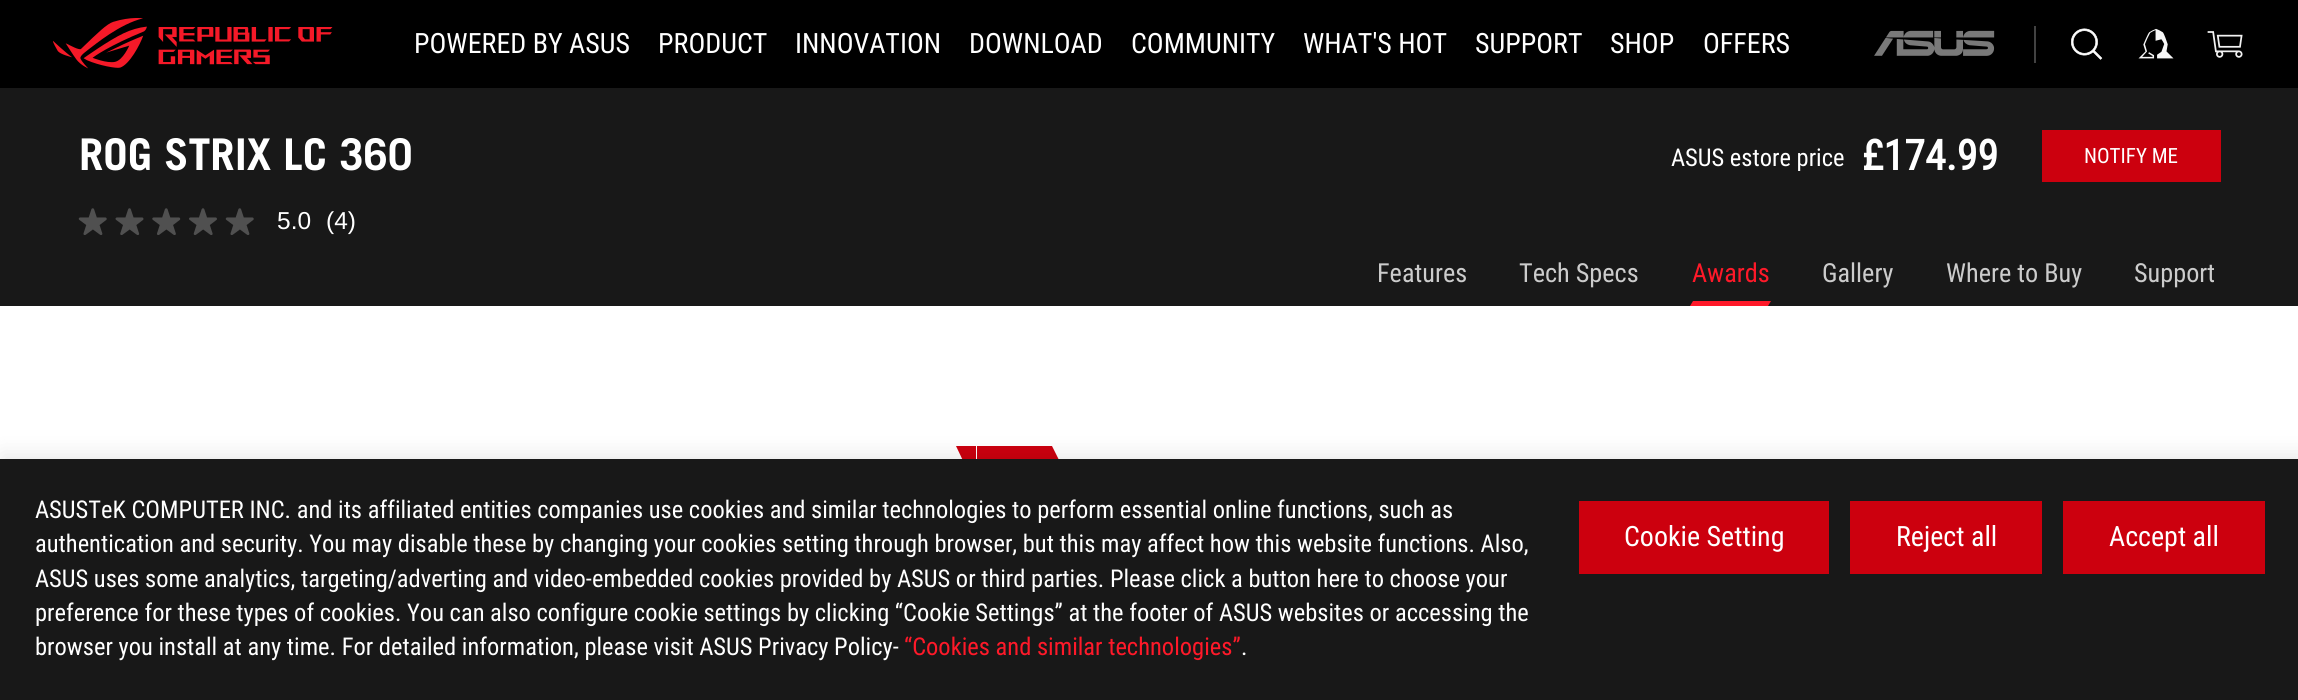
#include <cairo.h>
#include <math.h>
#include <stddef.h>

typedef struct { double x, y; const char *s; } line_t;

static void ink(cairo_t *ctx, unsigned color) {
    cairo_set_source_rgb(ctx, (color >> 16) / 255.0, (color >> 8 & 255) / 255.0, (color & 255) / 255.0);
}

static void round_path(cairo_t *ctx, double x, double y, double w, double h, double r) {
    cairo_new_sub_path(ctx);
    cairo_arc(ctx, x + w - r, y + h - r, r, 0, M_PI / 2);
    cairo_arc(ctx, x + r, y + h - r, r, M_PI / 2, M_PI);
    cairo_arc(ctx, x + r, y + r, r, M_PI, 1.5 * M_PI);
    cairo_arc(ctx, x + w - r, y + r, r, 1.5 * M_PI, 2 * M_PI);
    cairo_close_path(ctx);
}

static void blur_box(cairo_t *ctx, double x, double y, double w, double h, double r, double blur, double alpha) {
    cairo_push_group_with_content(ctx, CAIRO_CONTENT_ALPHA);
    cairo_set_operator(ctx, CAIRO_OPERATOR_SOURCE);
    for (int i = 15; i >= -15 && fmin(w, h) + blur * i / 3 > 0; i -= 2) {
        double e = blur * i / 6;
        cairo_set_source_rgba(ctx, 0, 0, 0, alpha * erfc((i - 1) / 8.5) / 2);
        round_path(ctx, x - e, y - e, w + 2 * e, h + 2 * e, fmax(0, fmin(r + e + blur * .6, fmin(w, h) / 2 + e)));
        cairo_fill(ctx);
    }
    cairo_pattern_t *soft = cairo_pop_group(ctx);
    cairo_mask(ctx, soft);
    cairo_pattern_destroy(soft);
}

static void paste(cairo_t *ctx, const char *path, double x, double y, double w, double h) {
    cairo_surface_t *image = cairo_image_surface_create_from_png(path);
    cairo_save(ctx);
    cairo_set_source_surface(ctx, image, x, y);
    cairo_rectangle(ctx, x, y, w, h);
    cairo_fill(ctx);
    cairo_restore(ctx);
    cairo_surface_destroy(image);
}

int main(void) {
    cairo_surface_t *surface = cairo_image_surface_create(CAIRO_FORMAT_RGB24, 2298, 700);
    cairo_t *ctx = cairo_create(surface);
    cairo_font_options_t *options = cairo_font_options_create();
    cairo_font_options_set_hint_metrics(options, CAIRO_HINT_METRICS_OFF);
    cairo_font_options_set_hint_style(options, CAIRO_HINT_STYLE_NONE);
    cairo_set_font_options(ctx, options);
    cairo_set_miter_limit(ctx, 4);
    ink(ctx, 0xFFFFFF);
    cairo_paint(ctx);
    ink(ctx, 0x000000);
    cairo_rectangle(ctx, 0, 0, 2298, 88);
    cairo_fill(ctx);
    paste(ctx, "media/1.png", 53, 18, 280, 51);
    cairo_select_font_face(ctx, "Roboto Condensed", CAIRO_FONT_SLANT_NORMAL, CAIRO_FONT_WEIGHT_NORMAL);
    cairo_set_font_size(ctx, 28);
    ink(ctx, 0xFFFFFF);
    {
        static const line_t items[] = {
            {414, 53, "POWERED BY ASUS"},
            {658, 53, "PRODUCT"},
            {795, 53, "INNOVATION"},
            {969, 53, "DOWNLOAD"},
            {1131, 53, "COMMUNITY"},
            {1303, 53, "WHAT'S HOT"},
            {1475, 53, "SUPPORT"},
            {1610, 53, "SHOP"},
            {1703, 53, "OFFERS"},
        };
        for (size_t i = 0; i < sizeof items / sizeof *items; i++) {
            cairo_move_to(ctx, items[i].x, items[i].y);
            cairo_show_text(ctx, items[i].s);
        }
    }
    ink(ctx, 0x424242);
    cairo_rectangle(ctx, 2034, 26, 2, 37);
    cairo_fill(ctx);
    paste(ctx, "media/2.png", 1874, 30, 121, 26);
    paste(ctx, "media/3.png", 2071, 28, 32, 32);
    paste(ctx, "media/4.png", 2138, 28, 36, 31);
    paste(ctx, "media/5.png", 2207, 31, 36, 27);
    ink(ctx, 0x181818);
    cairo_rectangle(ctx, 0, 88, 2298, 218);
    cairo_fill(ctx);
    cairo_select_font_face(ctx, "Trade Gothic", CAIRO_FONT_SLANT_NORMAL, CAIRO_FONT_WEIGHT_BOLD);
    cairo_set_font_size(ctx, 43.75);
    ink(ctx, 0xFFFFFF);
    cairo_move_to(ctx, 79, 170);
    cairo_show_text(ctx, "ROG STRIX LC 360");
    paste(ctx, "media/6.png", 78, 208, 29, 27);
    paste(ctx, "media/7.png", 115, 208, 29, 27);
    paste(ctx, "media/8.png", 152, 208, 29, 27);
    paste(ctx, "media/9.png", 189, 208, 28, 27);
    paste(ctx, "media/6.png", 225, 208, 29, 27);
    cairo_select_font_face(ctx, "Liberation Sans", CAIRO_FONT_SLANT_NORMAL, CAIRO_FONT_WEIGHT_NORMAL);
    cairo_set_font_size(ctx, 24.5);
    cairo_move_to(ctx, 277, 229);
    cairo_show_text(ctx, "5.0");
    cairo_move_to(ctx, 326, 229);
    cairo_show_text(ctx, "(4)");
    cairo_select_font_face(ctx, "Roboto Condensed", CAIRO_FONT_SLANT_NORMAL, CAIRO_FONT_WEIGHT_NORMAL);
    cairo_move_to(ctx, 1671, 166);
    cairo_show_text(ctx, "ASUS estore price");
    cairo_select_font_face(ctx, "Roboto Condensed", CAIRO_FONT_SLANT_NORMAL, CAIRO_FONT_WEIGHT_BOLD);
    cairo_set_font_size(ctx, 42);
    cairo_move_to(ctx, 1862, 170);
    cairo_show_text(ctx, "£174.99");
    ink(ctx, 0xCC000E);
    cairo_rectangle(ctx, 2042, 130, 179, 52);
    cairo_fill(ctx);
    cairo_select_font_face(ctx, "Roboto Condensed", CAIRO_FONT_SLANT_NORMAL, CAIRO_FONT_WEIGHT_NORMAL);
    cairo_set_font_size(ctx, 21);
    ink(ctx, 0xFFFFFF);
    cairo_move_to(ctx, 2084, 163);
    cairo_show_text(ctx, "NOTIFY ME");
    cairo_set_font_size(ctx, 26.25);
    ink(ctx, 0xCCCCCC);
    cairo_move_to(ctx, 1377, 282);
    cairo_show_text(ctx, "Features");
    cairo_move_to(ctx, 1519, 282);
    cairo_show_text(ctx, "Tech Specs");
    ink(ctx, 0xFF1929);
    cairo_move_to(ctx, 1692, 282);
    cairo_show_text(ctx, "Awards");
    cairo_new_path(ctx);
    cairo_move_to(ctx, 1693, 301);
    cairo_line_to(ctx, 1771, 301);
    cairo_line_to(ctx, 1768, 306);
    cairo_line_to(ctx, 1690, 306);
    cairo_close_path(ctx);
    cairo_fill(ctx);
    ink(ctx, 0xCCCCCC);
    {
        static const line_t items[] = {
            {1822, 282, "Gallery"},
            {1946, 282, "Where to Buy"},
            {2134, 282, "Support"},
        };
        for (size_t i = 0; i < sizeof items / sizeof *items; i++) {
            cairo_move_to(ctx, items[i].x, items[i].y);
            cairo_show_text(ctx, items[i].s);
        }
    }
    ink(ctx, 0xCC000E);
    cairo_rectangle(ctx, 977, 446, 75, 13);
    cairo_fill(ctx);
    cairo_new_path(ctx);
    cairo_move_to(ctx, 976, 446);
    cairo_line_to(ctx, 976, 488);
    cairo_line_to(ctx, 956, 446);
    cairo_close_path(ctx);
    cairo_fill(ctx);
    cairo_new_path(ctx);
    cairo_move_to(ctx, 1052, 488);
    cairo_line_to(ctx, 1052, 446);
    cairo_line_to(ctx, 1073, 488);
    cairo_close_path(ctx);
    cairo_fill(ctx);
    ink(ctx, 0x000000);
    blur_box(ctx, 2, 455, 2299, 242, 0, 10.5, 0.1);
    ink(ctx, 0x181818);
    cairo_rectangle(ctx, 0, 459, 2298, 241);
    cairo_fill(ctx);
    cairo_set_font_size(ctx, 24.5);
    ink(ctx, 0xFFFFFF);
    {
        static const line_t items[] = {
            {35, 518, "ASUSTeK COMPUTER INC. and its affiliated entities companies use cookies and similar technologies to perform essential online functions, such as"},
            {35, 552, "authentication and security. You may disable these by changing your cookies setting through browser, but this may affect how this website functions. Also,"},
            {35, 587, "ASUS uses some analytics, targeting/adverting and video-embedded cookies provided by ASUS or third parties. Please click a button here to choose your"},
            {35, 621, "preference for these types of cookies. You can also configure cookie settings by clicking “Cookie Settings” at the footer of ASUS websites or accessing the"},
            {35, 655, "browser you install at any time. For detailed information, please visit ASUS Privacy Policy-"},
        };
        for (size_t i = 0; i < sizeof items / sizeof *items; i++) {
            cairo_move_to(ctx, items[i].x, items[i].y);
            cairo_show_text(ctx, items[i].s);
        }
    }
    ink(ctx, 0xFF1929);
    cairo_move_to(ctx, 904, 655);
    cairo_show_text(ctx, "“Cookies and similar technologies”");
    ink(ctx, 0xFFFFFF);
    cairo_move_to(ctx, 1241, 655);
    cairo_show_text(ctx, ".");
    ink(ctx, 0xCC000E);
    cairo_rectangle(ctx, 1579, 501, 250, 73);
    cairo_fill(ctx);
    cairo_set_font_size(ctx, 28);
    ink(ctx, 0xFFFFFF);
    cairo_move_to(ctx, 1624, 546);
    cairo_show_text(ctx, "Cookie Setting");
    ink(ctx, 0xCC000E);
    cairo_rectangle(ctx, 1850, 501, 192, 73);
    cairo_fill(ctx);
    ink(ctx, 0xFFFFFF);
    cairo_move_to(ctx, 1896, 546);
    cairo_show_text(ctx, "Reject all");
    ink(ctx, 0xCC000E);
    cairo_rectangle(ctx, 2063, 501, 202, 73);
    cairo_fill(ctx);
    ink(ctx, 0xFFFFFF);
    cairo_move_to(ctx, 2109, 546);
    cairo_show_text(ctx, "Accept all");
    cairo_surface_write_to_png(surface, "image.png");
    cairo_font_options_destroy(options);
    cairo_destroy(ctx);
    cairo_surface_destroy(surface);
    return 0;
}
